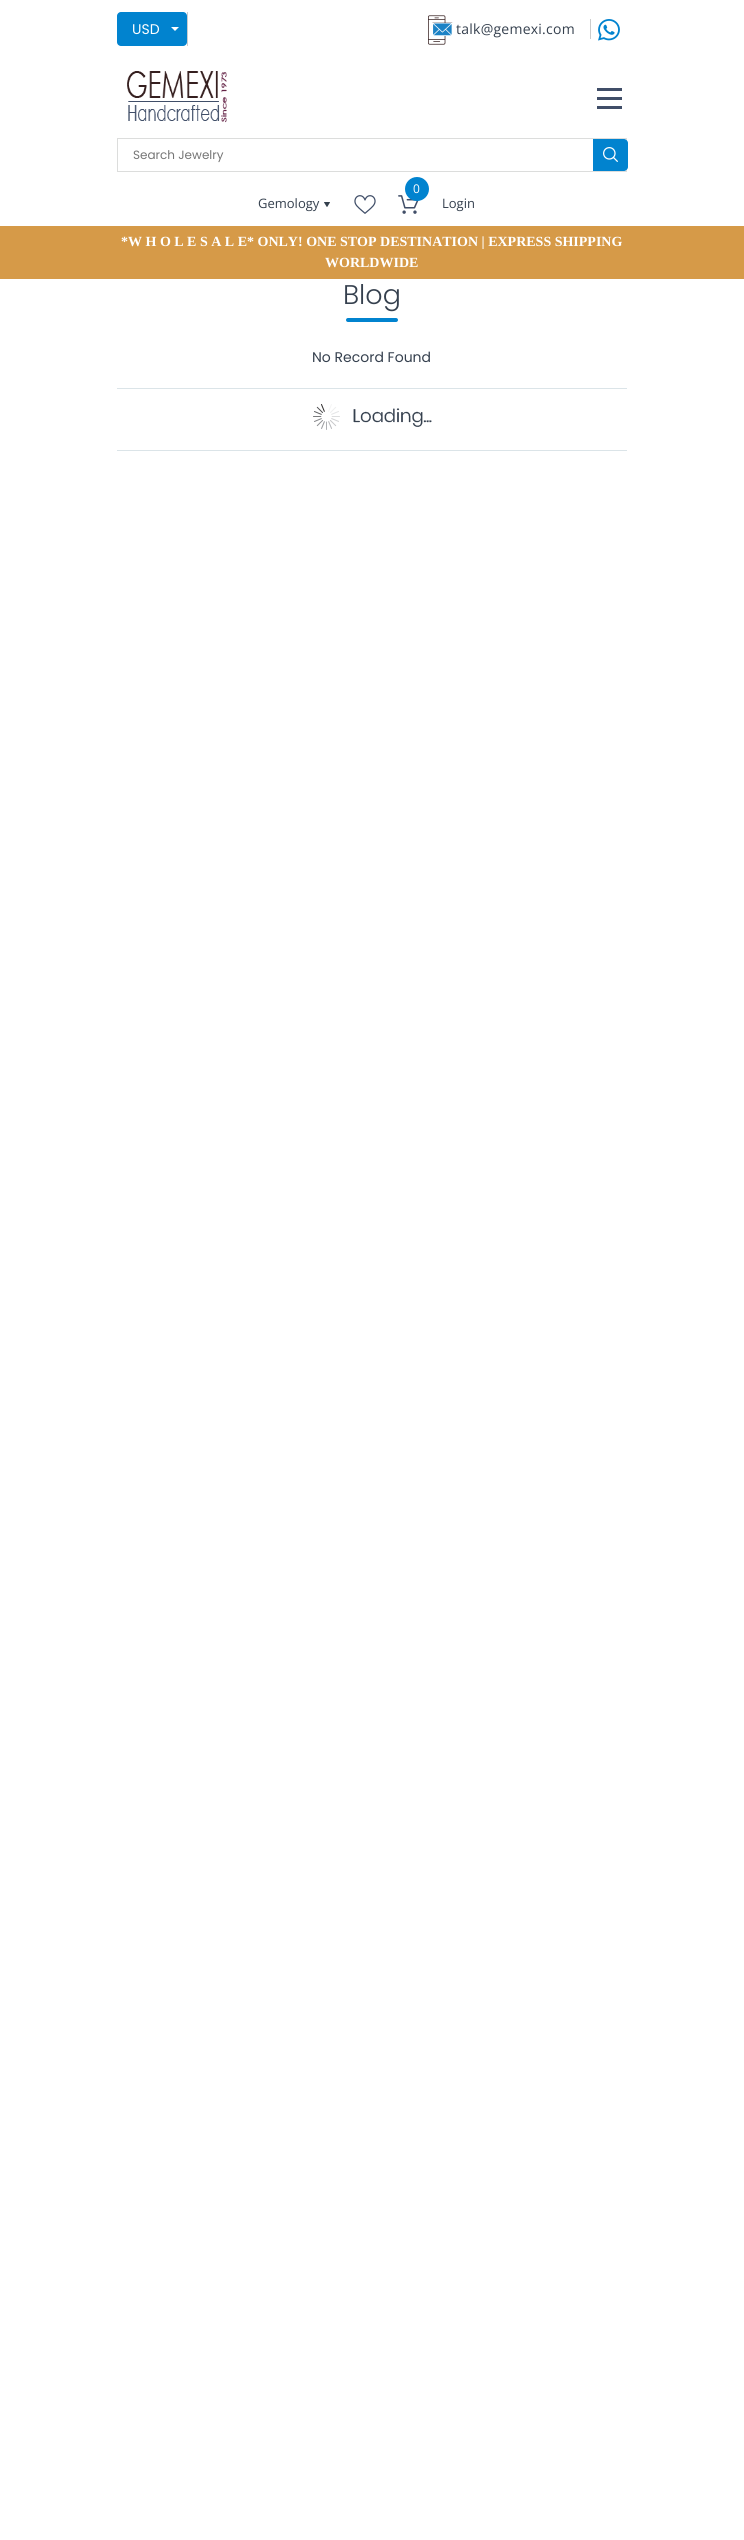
#include <cairo.h>
#include <math.h>
#include <stddef.h>

typedef struct { double x, y, w, h; unsigned color; } box_t;

static void ink(cairo_t *ctx, unsigned color) {
    cairo_set_source_rgb(ctx, (color >> 16) / 255.0, (color >> 8 & 255) / 255.0, (color & 255) / 255.0);
}

static void write_spaced(cairo_t *ctx, double x, double y, const char *s, double letter, double word) {
    cairo_move_to(ctx, x, y);
    while (*s) {
        char ch[5] = {0};
        int n = 0;
        do ch[n++] = *s++; while ((*s & 0xC0) == 0x80);
        cairo_show_text(ctx, ch);
        cairo_rel_move_to(ctx, letter + word * (*ch == ' '), 0);
    }
}

static void round_path(cairo_t *ctx, double x, double y, double w, double h, double r) {
    cairo_new_sub_path(ctx);
    cairo_arc(ctx, x + w - r, y + h - r, r, 0, M_PI / 2);
    cairo_arc(ctx, x + r, y + h - r, r, M_PI / 2, M_PI);
    cairo_arc(ctx, x + r, y + r, r, M_PI, 1.5 * M_PI);
    cairo_arc(ctx, x + w - r, y + r, r, 1.5 * M_PI, 2 * M_PI);
    cairo_close_path(ctx);
}

static void paste(cairo_t *ctx, const char *path, double x, double y, double w, double h) {
    cairo_surface_t *image = cairo_image_surface_create_from_png(path);
    cairo_save(ctx);
    cairo_set_source_surface(ctx, image, x, y);
    cairo_rectangle(ctx, x, y, w, h);
    cairo_fill(ctx);
    cairo_restore(ctx);
    cairo_surface_destroy(image);
}

int main(void) {
    cairo_surface_t *surface = cairo_image_surface_create(CAIRO_FORMAT_RGB24, 744, 2540);
    cairo_t *ctx = cairo_create(surface);
    cairo_font_options_t *options = cairo_font_options_create();
    cairo_font_options_set_hint_metrics(options, CAIRO_HINT_METRICS_OFF);
    cairo_font_options_set_hint_style(options, CAIRO_HINT_STYLE_NONE);
    cairo_set_font_options(ctx, options);
    cairo_set_miter_limit(ctx, 4);
    ink(ctx, 0xFFFFFF);
    cairo_paint(ctx);
    ink(ctx, 0xCCCCCC);
    cairo_rectangle(ctx, 187, 12, 1, 34);
    cairo_fill(ctx);
    ink(ctx, 0x0183CF);
    round_path(ctx, 117, 12, 70, 34, 4);
    cairo_fill(ctx);
    cairo_select_font_face(ctx, "Poppins", CAIRO_FONT_SLANT_NORMAL, CAIRO_FONT_WEIGHT_NORMAL);
    cairo_set_font_size(ctx, 14);
    ink(ctx, 0xFFFFFF);
    cairo_move_to(ctx, 132, 34);
    cairo_show_text(ctx, "USD");
    cairo_new_path(ctx);
    cairo_move_to(ctx, 171, 27);
    cairo_line_to(ctx, 179, 27);
    cairo_line_to(ctx, 175, 31);
    cairo_close_path(ctx);
    cairo_fill(ctx);
    paste(ctx, "media/1.png", 428, 15, 25, 30);
    cairo_select_font_face(ctx, "Open Sans", CAIRO_FONT_SLANT_NORMAL, CAIRO_FONT_WEIGHT_NORMAL);
    ink(ctx, 0x35404E);
    write_spaced(ctx, 456, 34, "talk@gemexi.com", 0.25, 0);
    ink(ctx, 0xCCCCCC);
    cairo_rectangle(ctx, 590, 19, 1, 20);
    cairo_fill(ctx);
    paste(ctx, "media/2.png", 598, 19, 22, 22);
    paste(ctx, "media/3.png", 127, 71, 100, 52);
    {
        static const box_t items[] = {
            {597, 88, 25, 3, 0x404E68},
            {597, 97, 25, 3, 0x404E68},
            {597, 106, 25, 3, 0x404E68},
        };
        for (size_t i = 0; i < sizeof items / sizeof *items; i++) {
            ink(ctx, items[i].color);
            cairo_rectangle(ctx, items[i].x, items[i].y, items[i].w, items[i].h);
            cairo_fill(ctx);
        }
    }
    cairo_rectangle(ctx, 117.5, 138.5, 509, 33);
    ink(ctx, 0xDCDDDC);
    cairo_set_line_width(ctx, 1);
    cairo_stroke(ctx);
    cairo_select_font_face(ctx, "Poppins", CAIRO_FONT_SLANT_NORMAL, CAIRO_FONT_WEIGHT_NORMAL);
    cairo_set_font_size(ctx, 12);
    ink(ctx, 0x757575);
    cairo_move_to(ctx, 133, 159);
    cairo_show_text(ctx, "Search Jewelry");
    ink(ctx, 0x0183CF);
    cairo_new_path(ctx);
    cairo_move_to(ctx, 593, 139);
    cairo_line_to(ctx, 624, 139);
    cairo_curve_to(ctx, 626, 139, 628, 141, 628, 143);
    cairo_line_to(ctx, 628, 167);
    cairo_curve_to(ctx, 628, 169, 626, 171, 624, 171);
    cairo_line_to(ctx, 593, 171);
    cairo_close_path(ctx);
    cairo_fill(ctx);
    paste(ctx, "media/4.png", 603, 147, 15, 15);
    paste(ctx, "media/5.png", 398, 195, 21, 19);
    cairo_arc(ctx, 417, 189, 12, 0, 2 * M_PI);
    cairo_fill(ctx);
    cairo_select_font_face(ctx, "Open Sans", CAIRO_FONT_SLANT_NORMAL, CAIRO_FONT_WEIGHT_NORMAL);
    ink(ctx, 0xFFFFFF);
    cairo_move_to(ctx, 413, 193);
    cairo_show_text(ctx, "0");
    cairo_set_font_size(ctx, 13);
    ink(ctx, 0x35404E);
    cairo_move_to(ctx, 258, 208);
    cairo_show_text(ctx, "Gemology");
    paste(ctx, "media/6.png", 324, 202, 6, 5);
    paste(ctx, "media/7.png", 354, 195, 22, 19);
    cairo_move_to(ctx, 442, 208);
    cairo_show_text(ctx, "Login");
    ink(ctx, 0xD69A48);
    cairo_rectangle(ctx, 0, 226, 744, 53);
    cairo_fill(ctx);
    cairo_select_font_face(ctx, "Liberation Serif", CAIRO_FONT_SLANT_NORMAL, CAIRO_FONT_WEIGHT_BOLD);
    cairo_set_font_size(ctx, 14);
    ink(ctx, 0xFFFFFF);
    cairo_move_to(ctx, 121, 246);
    cairo_show_text(ctx, "*W H O L E S A L E* ONLY! ONE STOP DESTINATION | EXPRESS SHIPPING");
    cairo_move_to(ctx, 325, 267);
    cairo_show_text(ctx, "WORLDWIDE");
    cairo_select_font_face(ctx, "Poppins Light", CAIRO_FONT_SLANT_NORMAL, CAIRO_FONT_WEIGHT_NORMAL);
    cairo_set_font_size(ctx, 27);
    ink(ctx, 0x35404E);
    cairo_move_to(ctx, 343, 304);
    cairo_show_text(ctx, "Blog");
    ink(ctx, 0x0183CF);
    round_path(ctx, 346, 318, 52, 4, 2);
    cairo_fill(ctx);
    ink(ctx, 0xDBE4E8);
    cairo_rectangle(ctx, 117, 388, 510, 1);
    cairo_fill(ctx);
    cairo_select_font_face(ctx, "Poppins", CAIRO_FONT_SLANT_NORMAL, CAIRO_FONT_WEIGHT_NORMAL);
    cairo_set_font_size(ctx, 14);
    ink(ctx, 0x35404E);
    cairo_move_to(ctx, 312, 362);
    cairo_show_text(ctx, "No Record Found");
    ink(ctx, 0xDBE4E8);
    cairo_rectangle(ctx, 117, 450, 510, 1);
    cairo_fill(ctx);
    paste(ctx, "media/8.png", 313, 404, 119, 26);
    cairo_surface_write_to_png(surface, "image.png");
    cairo_font_options_destroy(options);
    cairo_destroy(ctx);
    cairo_surface_destroy(surface);
    return 0;
}
